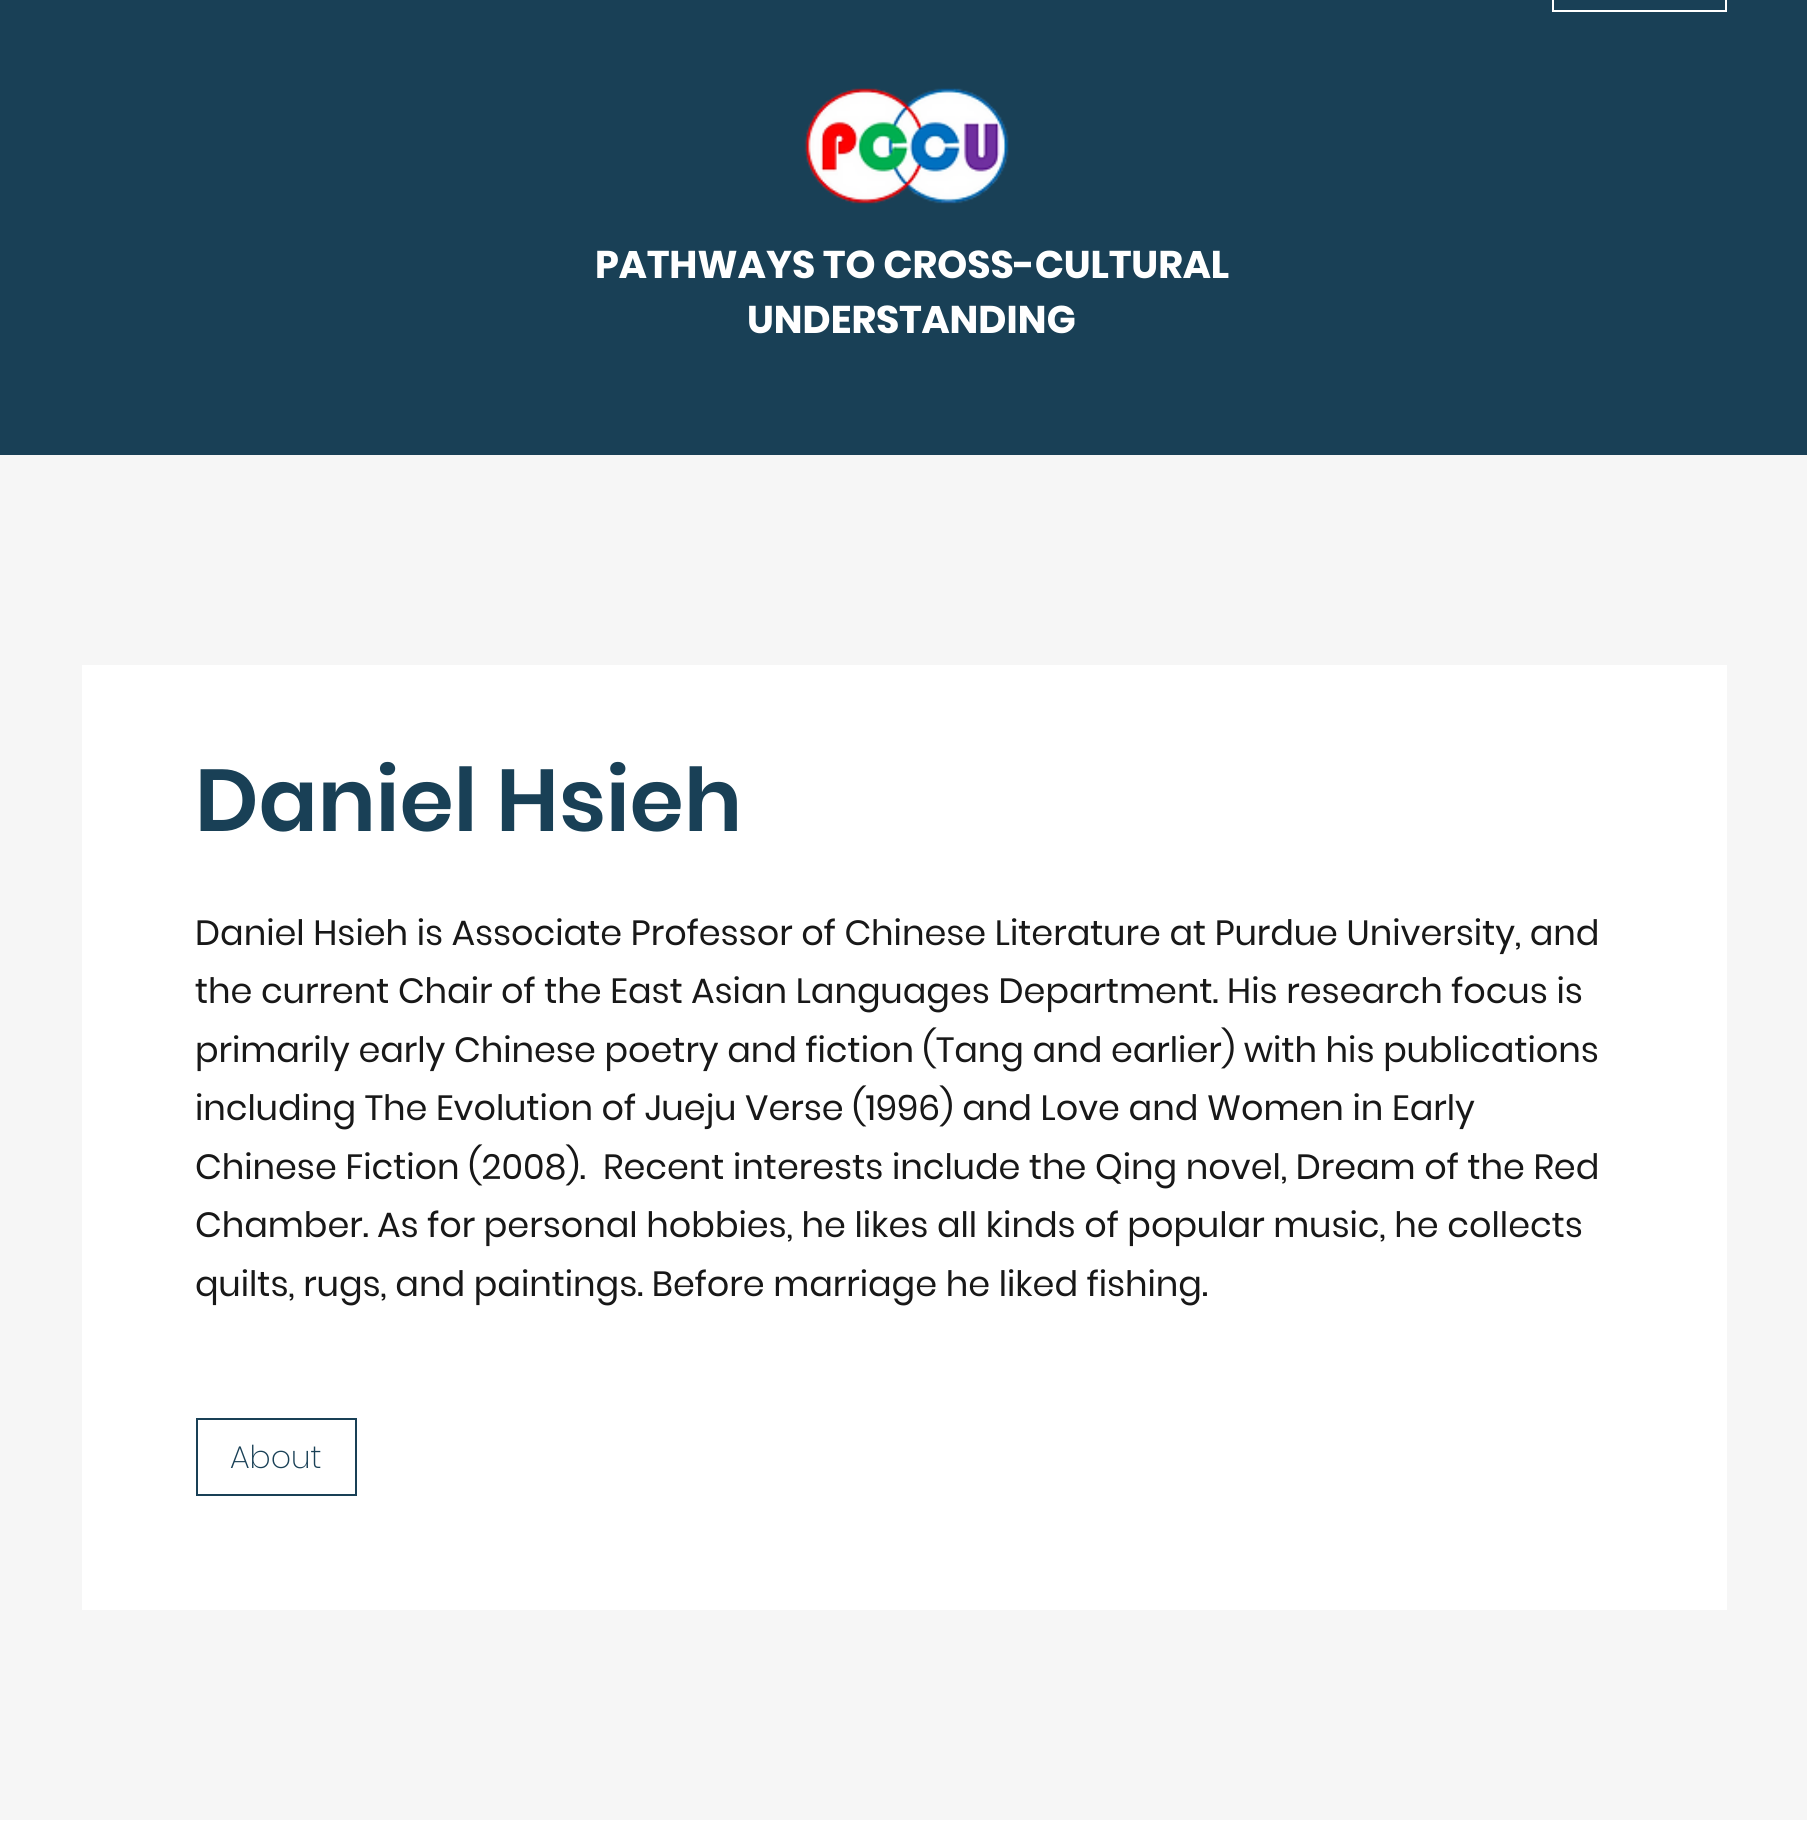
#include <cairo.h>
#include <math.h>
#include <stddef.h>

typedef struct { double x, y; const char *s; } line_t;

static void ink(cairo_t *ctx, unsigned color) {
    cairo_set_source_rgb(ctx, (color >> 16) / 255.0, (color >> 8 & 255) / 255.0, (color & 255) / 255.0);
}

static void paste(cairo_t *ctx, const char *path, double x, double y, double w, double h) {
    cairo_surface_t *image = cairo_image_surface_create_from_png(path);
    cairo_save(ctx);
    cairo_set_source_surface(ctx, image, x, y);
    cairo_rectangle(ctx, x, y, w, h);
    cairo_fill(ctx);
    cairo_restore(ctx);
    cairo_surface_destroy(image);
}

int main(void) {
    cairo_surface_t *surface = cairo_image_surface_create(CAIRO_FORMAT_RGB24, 1807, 1842);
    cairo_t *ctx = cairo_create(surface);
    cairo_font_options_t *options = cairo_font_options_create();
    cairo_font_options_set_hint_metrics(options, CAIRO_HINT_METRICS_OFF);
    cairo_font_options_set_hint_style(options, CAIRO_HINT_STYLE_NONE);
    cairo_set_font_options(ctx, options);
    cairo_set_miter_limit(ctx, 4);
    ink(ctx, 0xFFFFFF);
    cairo_paint(ctx);
    ink(ctx, 0x194056);
    cairo_rectangle(ctx, 0, 0, 1807, 455);
    cairo_fill(ctx);
    cairo_rectangle(ctx, 1553, -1, 173, 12);
    ink(ctx, 0xFFFFFF);
    cairo_stroke(ctx);
    paste(ctx, "media/1.png", 804, 88, 205, 116);
    cairo_select_font_face(ctx, "Poppins", CAIRO_FONT_SLANT_NORMAL, CAIRO_FONT_WEIGHT_BOLD);
    cairo_set_font_size(ctx, 38.5);
    cairo_move_to(ctx, 595, 278);
    cairo_show_text(ctx, "PATHWAYS TO CROSS-CULTURAL");
    cairo_move_to(ctx, 747, 333);
    cairo_show_text(ctx, "UNDERSTANDING");
    ink(ctx, 0xF6F6F6);
    cairo_rectangle(ctx, 0, 455, 1807, 1365);
    cairo_fill(ctx);
    ink(ctx, 0xFFFFFF);
    cairo_rectangle(ctx, 82, 665, 1645, 945);
    cairo_fill(ctx);
    cairo_select_font_face(ctx, "Poppins SemiBold", CAIRO_FONT_SLANT_NORMAL, CAIRO_FONT_WEIGHT_NORMAL);
    cairo_set_font_size(ctx, 87.5);
    ink(ctx, 0x194056);
    cairo_move_to(ctx, 195, 831);
    cairo_show_text(ctx, "Daniel Hsieh");
    cairo_select_font_face(ctx, "Poppins", CAIRO_FONT_SLANT_NORMAL, CAIRO_FONT_WEIGHT_NORMAL);
    cairo_set_font_size(ctx, 35);
    ink(ctx, 0x181818);
    {
        static const line_t items[] = {
            {195, 945, "Daniel Hsieh is Associate Professor of Chinese Literature at Purdue University, and"},
            {195, 1003, "the current Chair of the East Asian Languages Department. His research focus is"},
            {195, 1062, "primarily early Chinese poetry and fiction (Tang and earlier) with his publications"},
            {195, 1120, "including The Evolution of Jueju Verse (1996) and Love and Women in Early"},
            {195, 1179, "Chinese Fiction (2008).  Recent interests include the Qing novel, Dream of the Red"},
            {195, 1237, "Chamber. As for personal hobbies, he likes all kinds of popular music, he collects"},
            {195, 1296, "quilts, rugs, and paintings. Before marriage he liked fishing."},
        };
        for (size_t i = 0; i < sizeof items / sizeof *items; i++) {
            cairo_move_to(ctx, items[i].x, items[i].y);
            cairo_show_text(ctx, items[i].s);
        }
    }
    cairo_rectangle(ctx, 197, 1419, 159, 76);
    ink(ctx, 0x194056);
    cairo_stroke(ctx);
    cairo_select_font_face(ctx, "Poppins ExtraLight", CAIRO_FONT_SLANT_NORMAL, CAIRO_FONT_WEIGHT_NORMAL);
    cairo_set_font_size(ctx, 31.5);
    cairo_move_to(ctx, 230, 1468);
    cairo_show_text(ctx, "About");
    cairo_surface_write_to_png(surface, "image.png");
    cairo_font_options_destroy(options);
    cairo_destroy(ctx);
    cairo_surface_destroy(surface);
    return 0;
}
